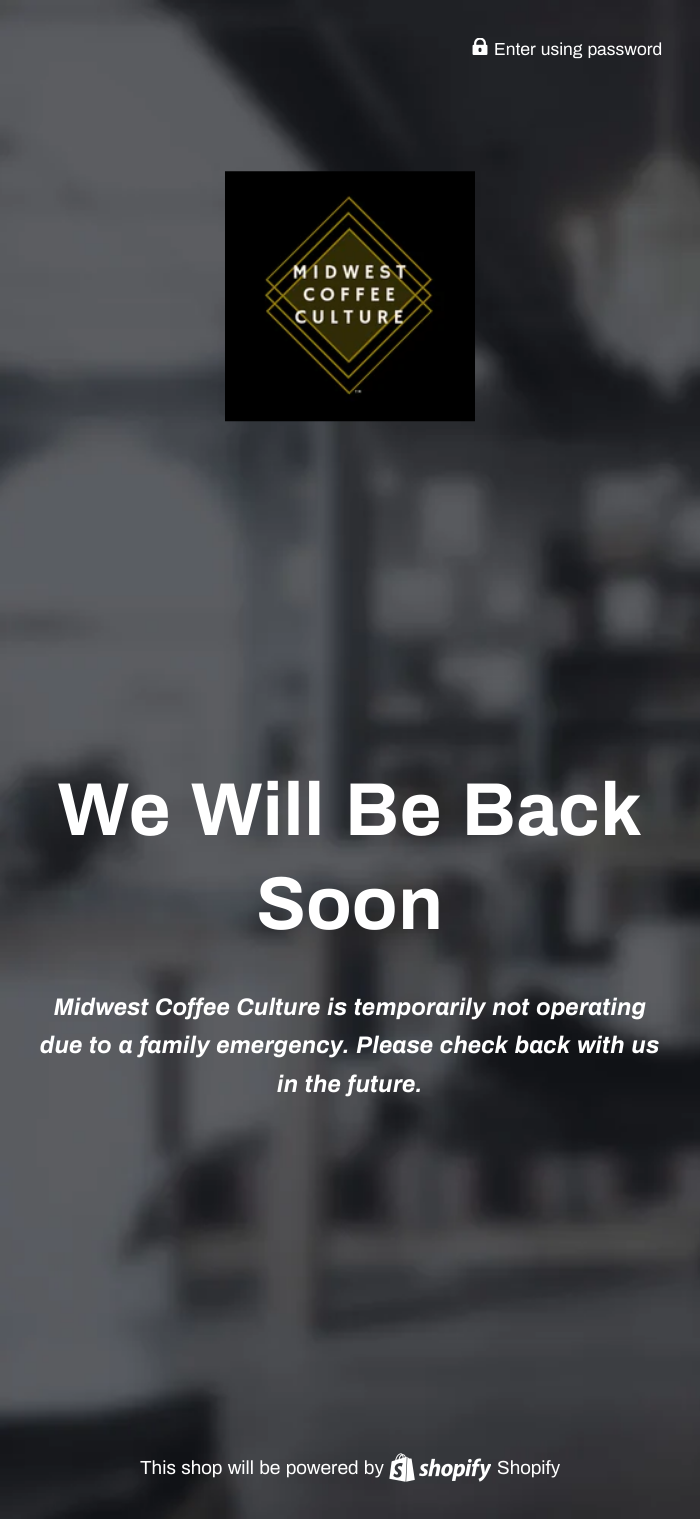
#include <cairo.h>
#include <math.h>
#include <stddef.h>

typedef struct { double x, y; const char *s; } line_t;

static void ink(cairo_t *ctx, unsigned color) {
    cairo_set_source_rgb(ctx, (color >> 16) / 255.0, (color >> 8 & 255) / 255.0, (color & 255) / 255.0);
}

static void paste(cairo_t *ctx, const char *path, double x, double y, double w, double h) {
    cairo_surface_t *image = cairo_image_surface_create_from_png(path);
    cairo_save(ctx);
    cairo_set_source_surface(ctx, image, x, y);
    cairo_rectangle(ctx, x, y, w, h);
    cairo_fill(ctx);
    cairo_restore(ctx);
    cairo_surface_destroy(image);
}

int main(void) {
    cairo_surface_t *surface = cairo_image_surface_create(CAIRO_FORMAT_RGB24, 700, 1519);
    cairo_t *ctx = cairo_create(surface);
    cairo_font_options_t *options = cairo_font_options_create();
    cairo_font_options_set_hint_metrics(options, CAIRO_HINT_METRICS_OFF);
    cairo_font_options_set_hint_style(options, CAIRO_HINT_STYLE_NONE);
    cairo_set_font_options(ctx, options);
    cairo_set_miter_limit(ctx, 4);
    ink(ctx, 0xFFFFFF);
    cairo_paint(ctx);
    paste(ctx, "media/1.png", 0, 0, 700, 1519);
    paste(ctx, "media/2.png", 472, 38, 16, 17);
    cairo_select_font_face(ctx, "Archivo", CAIRO_FONT_SLANT_NORMAL, CAIRO_FONT_WEIGHT_NORMAL);
    cairo_set_font_size(ctx, 17.5);
    ink(ctx, 0xFFFFFF);
    cairo_move_to(ctx, 494, 55);
    cairo_show_text(ctx, "Enter using password");
    paste(ctx, "media/3.png", 225, 171, 250, 251);
    cairo_select_font_face(ctx, "Archivo", CAIRO_FONT_SLANT_NORMAL, CAIRO_FONT_WEIGHT_BOLD);
    cairo_set_font_size(ctx, 75);
    cairo_move_to(ctx, 58, 835);
    cairo_show_text(ctx, "We Will Be Back");
    cairo_move_to(ctx, 256, 929);
    cairo_show_text(ctx, "Soon");
    cairo_select_font_face(ctx, "Archivo", CAIRO_FONT_SLANT_ITALIC, CAIRO_FONT_WEIGHT_BOLD);
    cairo_set_font_size(ctx, 24);
    {
        static const line_t items[] = {
            {54, 1015, "Midwest Coffee Culture is temporarily not operating"},
            {40, 1053, "due to a family emergency. Please check back with us"},
            {277, 1092, "in the future."},
        };
        for (size_t i = 0; i < sizeof items / sizeof *items; i++) {
            cairo_move_to(ctx, items[i].x, items[i].y);
            cairo_show_text(ctx, items[i].s);
        }
    }
    cairo_select_font_face(ctx, "Archivo", CAIRO_FONT_SLANT_NORMAL, CAIRO_FONT_WEIGHT_NORMAL);
    cairo_set_font_size(ctx, 19);
    cairo_move_to(ctx, 140, 1474);
    cairo_show_text(ctx, "This shop will be powered by");
    paste(ctx, "media/4.png", 389, 1453, 102, 29);
    cairo_move_to(ctx, 497, 1474);
    cairo_show_text(ctx, "Shopify");
    cairo_surface_write_to_png(surface, "image.png");
    cairo_font_options_destroy(options);
    cairo_destroy(ctx);
    cairo_surface_destroy(surface);
    return 0;
}
